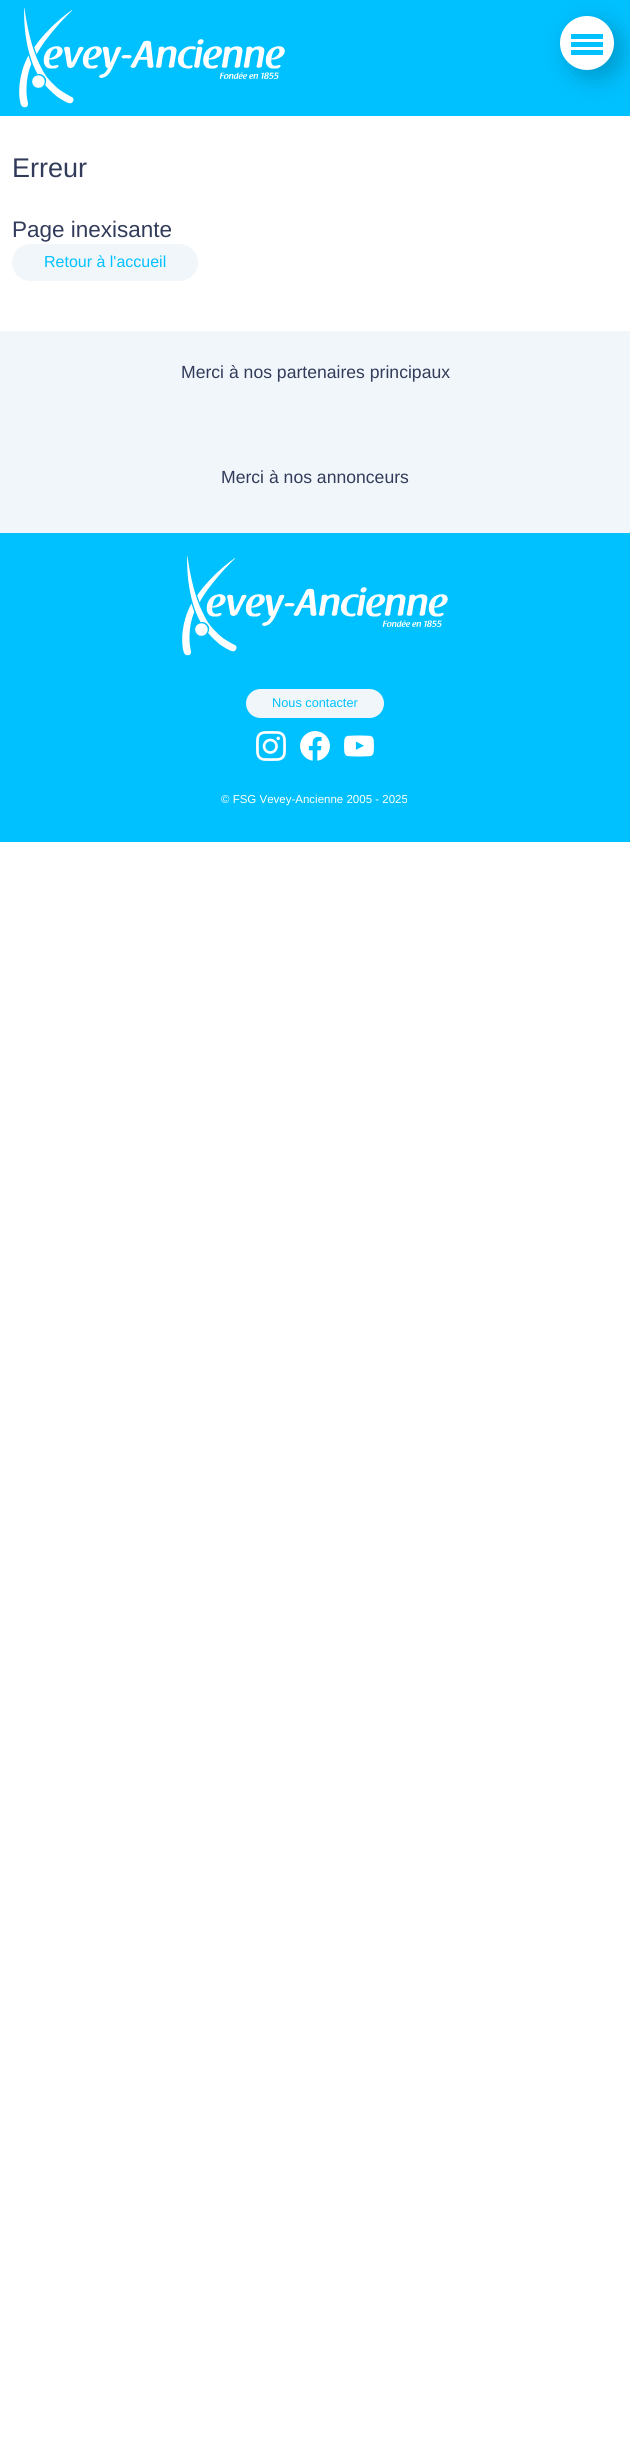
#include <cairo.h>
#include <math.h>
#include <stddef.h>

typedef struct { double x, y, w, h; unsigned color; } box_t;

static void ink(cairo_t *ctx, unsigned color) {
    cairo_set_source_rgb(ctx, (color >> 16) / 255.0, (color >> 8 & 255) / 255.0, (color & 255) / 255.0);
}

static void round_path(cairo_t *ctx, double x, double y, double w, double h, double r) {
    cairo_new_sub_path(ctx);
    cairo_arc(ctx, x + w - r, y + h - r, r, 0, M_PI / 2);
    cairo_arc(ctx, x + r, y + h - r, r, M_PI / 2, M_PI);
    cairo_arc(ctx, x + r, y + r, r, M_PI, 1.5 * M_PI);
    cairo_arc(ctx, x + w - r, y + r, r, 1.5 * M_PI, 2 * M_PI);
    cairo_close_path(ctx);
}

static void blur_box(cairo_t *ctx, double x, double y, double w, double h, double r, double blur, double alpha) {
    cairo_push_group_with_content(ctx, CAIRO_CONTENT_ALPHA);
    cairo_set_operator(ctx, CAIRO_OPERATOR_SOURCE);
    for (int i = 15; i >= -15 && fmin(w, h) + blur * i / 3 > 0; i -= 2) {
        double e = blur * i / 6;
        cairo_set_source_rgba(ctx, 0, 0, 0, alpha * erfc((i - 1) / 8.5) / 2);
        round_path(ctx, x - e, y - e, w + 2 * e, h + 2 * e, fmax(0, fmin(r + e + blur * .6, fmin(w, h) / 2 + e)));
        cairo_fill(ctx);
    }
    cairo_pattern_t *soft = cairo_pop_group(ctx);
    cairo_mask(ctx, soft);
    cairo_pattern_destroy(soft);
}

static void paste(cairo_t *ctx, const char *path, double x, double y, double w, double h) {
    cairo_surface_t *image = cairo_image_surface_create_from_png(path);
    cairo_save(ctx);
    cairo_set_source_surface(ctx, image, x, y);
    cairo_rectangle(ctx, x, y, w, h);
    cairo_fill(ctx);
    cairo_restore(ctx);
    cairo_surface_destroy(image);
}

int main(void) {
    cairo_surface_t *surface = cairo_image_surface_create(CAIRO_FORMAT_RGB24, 630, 2442);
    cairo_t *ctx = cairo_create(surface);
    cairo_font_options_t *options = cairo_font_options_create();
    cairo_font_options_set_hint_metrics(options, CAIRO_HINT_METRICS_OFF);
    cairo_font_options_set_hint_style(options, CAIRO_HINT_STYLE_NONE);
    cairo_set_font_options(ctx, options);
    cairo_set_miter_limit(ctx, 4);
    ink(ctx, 0xFFFFFF);
    cairo_paint(ctx);
    ink(ctx, 0x00C1FF);
    cairo_rectangle(ctx, 0, 0, 630, 116);
    cairo_fill(ctx);
    paste(ctx, "media/1.png", 19, 7, 266, 101);
    ink(ctx, 0x000000);
    blur_box(ctx, 568, 24, 54, 54, 27, 12, 0.2);
    ink(ctx, 0xFFFFFF);
    cairo_arc(ctx, 587, 43, 27, 0, 2 * M_PI);
    cairo_fill(ctx);
    {
        static const box_t items[] = {
            {571, 42, 32, 5, 0x00C1FF},
            {571, 34, 32, 5, 0x00C1FF},
            {571, 50, 32, 5, 0x00C1FF},
        };
        for (size_t i = 0; i < sizeof items / sizeof *items; i++) {
            ink(ctx, items[i].color);
            cairo_rectangle(ctx, items[i].x, items[i].y, items[i].w, items[i].h);
            cairo_fill(ctx);
        }
    }
    cairo_select_font_face(ctx, "Liberation Sans", CAIRO_FONT_SLANT_NORMAL, CAIRO_FONT_WEIGHT_NORMAL);
    cairo_set_font_size(ctx, 27);
    ink(ctx, 0x323C5A);
    cairo_move_to(ctx, 12, 177);
    cairo_show_text(ctx, "Erreur");
    cairo_set_font_size(ctx, 22.5);
    cairo_move_to(ctx, 12, 237);
    cairo_show_text(ctx, "Page inexisante");
    ink(ctx, 0xF1F6FB);
    round_path(ctx, 12, 244, 186, 37, 18.5);
    cairo_fill(ctx);
    cairo_set_font_size(ctx, 16);
    ink(ctx, 0x00C1FF);
    cairo_move_to(ctx, 44, 267);
    cairo_show_text(ctx, "Retour à l'accueil");
    ink(ctx, 0xF1F6FB);
    cairo_rectangle(ctx, 0, 331, 630, 202);
    cairo_fill(ctx);
    cairo_set_font_size(ctx, 17.6);
    ink(ctx, 0x323C5A);
    cairo_move_to(ctx, 181, 378);
    cairo_show_text(ctx, "Merci à nos partenaires principaux");
    cairo_move_to(ctx, 221, 483);
    cairo_show_text(ctx, "Merci à nos annonceurs");
    ink(ctx, 0x00C1FF);
    cairo_rectangle(ctx, 0, 533, 630, 309);
    cairo_fill(ctx);
    paste(ctx, "media/2.png", 182, 555, 266, 101);
    ink(ctx, 0xF1F6FB);
    round_path(ctx, 246, 689, 138, 29, 14.5);
    cairo_fill(ctx);
    cairo_set_font_size(ctx, 12.75);
    ink(ctx, 0x00C1FF);
    cairo_move_to(ctx, 272, 707);
    cairo_show_text(ctx, "Nous contacter");
    paste(ctx, "media/3.png", 256, 731, 30, 30);
    paste(ctx, "media/4.png", 300, 731, 30, 30);
    paste(ctx, "media/5.png", 344, 735, 30, 22);
    cairo_set_font_size(ctx, 11.5);
    ink(ctx, 0xFFFFFF);
    cairo_move_to(ctx, 221, 803);
    cairo_show_text(ctx, "© FSG Vevey-Ancienne 2005 - 2025");
    cairo_surface_write_to_png(surface, "image.png");
    cairo_font_options_destroy(options);
    cairo_destroy(ctx);
    cairo_surface_destroy(surface);
    return 0;
}
